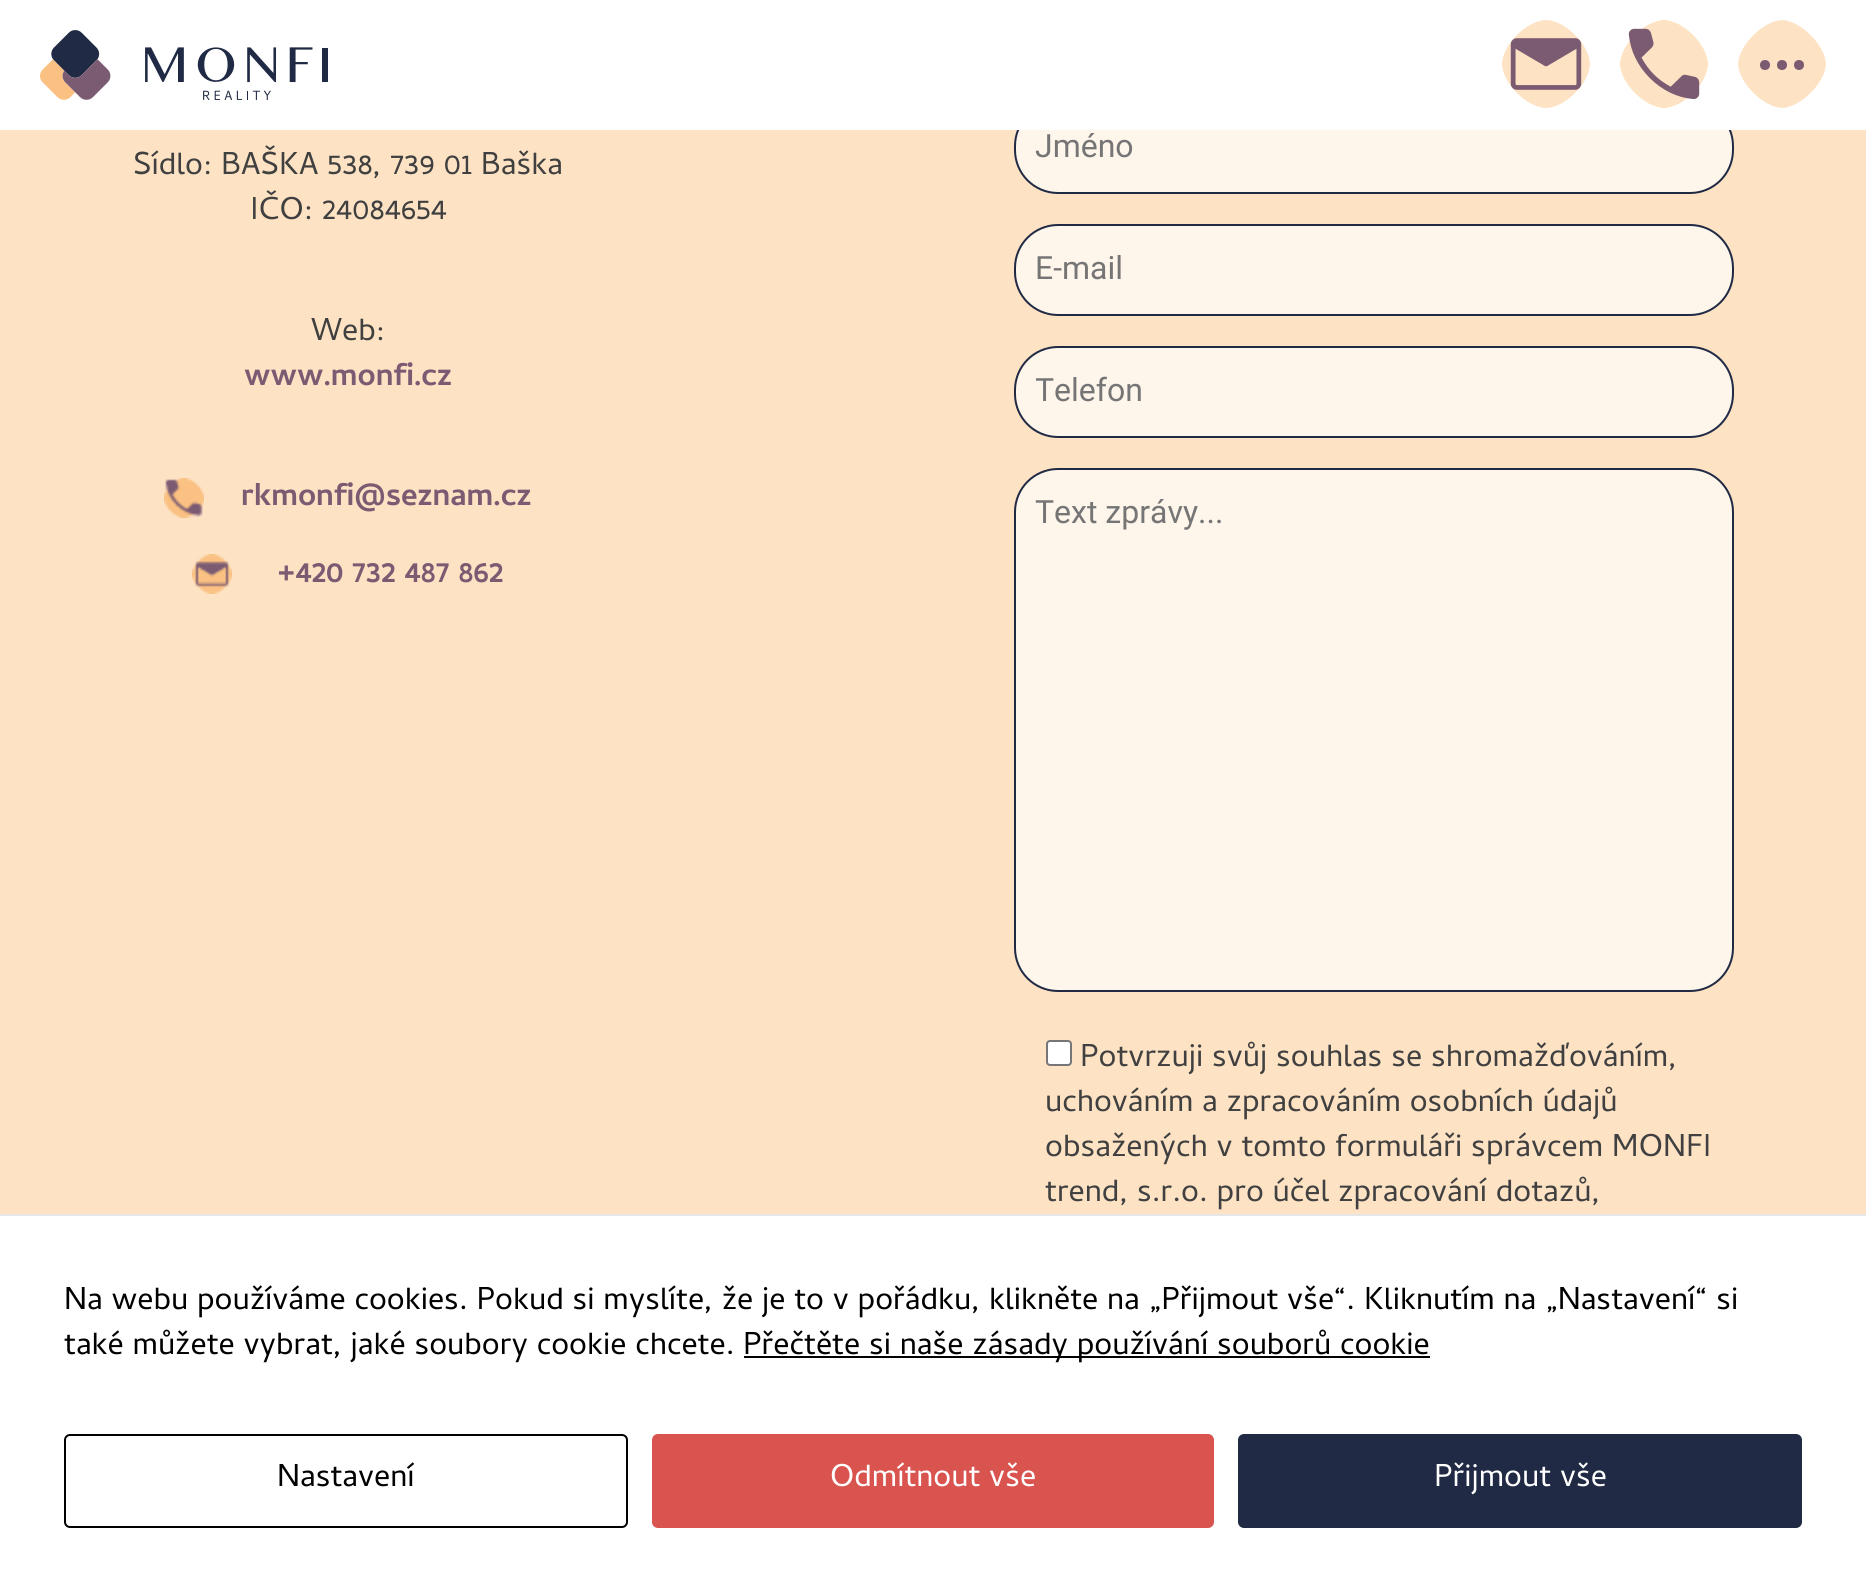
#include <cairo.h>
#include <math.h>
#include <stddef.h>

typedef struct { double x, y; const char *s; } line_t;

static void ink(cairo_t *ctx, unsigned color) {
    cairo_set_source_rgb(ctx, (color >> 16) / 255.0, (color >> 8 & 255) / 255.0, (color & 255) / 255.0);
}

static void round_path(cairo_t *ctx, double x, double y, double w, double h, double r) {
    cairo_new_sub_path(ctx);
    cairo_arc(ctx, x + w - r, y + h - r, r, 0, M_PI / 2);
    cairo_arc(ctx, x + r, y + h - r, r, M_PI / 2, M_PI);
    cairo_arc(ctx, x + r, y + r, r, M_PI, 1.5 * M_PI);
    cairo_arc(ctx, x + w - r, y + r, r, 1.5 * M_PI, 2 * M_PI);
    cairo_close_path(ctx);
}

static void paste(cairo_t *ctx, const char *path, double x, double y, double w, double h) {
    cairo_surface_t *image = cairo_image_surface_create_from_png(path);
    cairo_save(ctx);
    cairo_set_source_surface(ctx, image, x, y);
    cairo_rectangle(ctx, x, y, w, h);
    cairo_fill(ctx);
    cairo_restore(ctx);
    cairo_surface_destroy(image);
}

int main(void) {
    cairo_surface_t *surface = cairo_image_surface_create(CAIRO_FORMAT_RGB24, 1866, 1576);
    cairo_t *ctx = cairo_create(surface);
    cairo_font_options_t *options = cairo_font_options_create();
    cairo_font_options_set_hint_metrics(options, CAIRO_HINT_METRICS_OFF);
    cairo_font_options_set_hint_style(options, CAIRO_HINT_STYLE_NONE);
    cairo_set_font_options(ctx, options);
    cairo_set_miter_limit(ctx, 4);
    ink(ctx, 0xFDE2C4);
    cairo_paint(ctx);
    ink(ctx, 0xFEF5EB);
    round_path(ctx, 1015, 103, 718, 90, 43);
    cairo_fill_preserve(ctx);
    ink(ctx, 0x202A44);
    cairo_stroke(ctx);
    ink(ctx, 0xFFFFFF);
    cairo_rectangle(ctx, 0, 0, 1866, 130);
    cairo_fill(ctx);
    paste(ctx, "media/1.png", 40, 30, 288, 70);
    paste(ctx, "media/2.png", 1502, 20, 88, 88);
    paste(ctx, "media/3.png", 1620, 20, 88, 88);
    ink(ctx, 0xFDE2C4);
    cairo_new_path(ctx);
    cairo_move_to(ctx, 1738, 64);
    cairo_curve_to(ctx, 1739, 45, 1763, 21, 1782, 20);
    cairo_curve_to(ctx, 1801, 21, 1825, 45, 1826, 64);
    cairo_curve_to(ctx, 1825, 83, 1801, 107, 1782, 108);
    cairo_curve_to(ctx, 1763, 107, 1739, 83, 1738, 64);
    cairo_fill(ctx);
    ink(ctx, 0x7B5B72);
    cairo_arc(ctx, 1765, 65, 5, 0, 2 * M_PI);
    cairo_fill(ctx);
    cairo_arc(ctx, 1782, 65, 5, 0, 2 * M_PI);
    cairo_fill(ctx);
    cairo_arc(ctx, 1799, 65, 5, 0, 2 * M_PI);
    cairo_fill(ctx);
    cairo_select_font_face(ctx, "Cambay", CAIRO_FONT_SLANT_NORMAL, CAIRO_FONT_WEIGHT_NORMAL);
    cairo_set_font_size(ctx, 32);
    ink(ctx, 0x404040);
    {
        static const line_t items[] = {
            {133, 174, "Sídlo: BAŠKA 538, 739 01 Baška"},
            {250, 219, "IČO: 24084654"},
            {311, 340, "Web:"},
        };
        for (size_t i = 0; i < sizeof items / sizeof *items; i++) {
            cairo_move_to(ctx, items[i].x, items[i].y);
            cairo_show_text(ctx, items[i].s);
        }
    }
    cairo_select_font_face(ctx, "Cambay", CAIRO_FONT_SLANT_NORMAL, CAIRO_FONT_WEIGHT_BOLD);
    ink(ctx, 0x7B5B72);
    cairo_move_to(ctx, 244, 385);
    cairo_show_text(ctx, "www.monfi.cz");
    paste(ctx, "media/4.png", 164, 478, 40, 40);
    cairo_move_to(ctx, 241, 505);
    cairo_show_text(ctx, "rkmonfi@seznam.cz");
    paste(ctx, "media/5.png", 192, 554, 40, 40);
    cairo_move_to(ctx, 277, 582);
    cairo_show_text(ctx, "+420 732 487 862");
    cairo_select_font_face(ctx, "Roboto", CAIRO_FONT_SLANT_NORMAL, CAIRO_FONT_WEIGHT_NORMAL);
    ink(ctx, 0x757575);
    cairo_move_to(ctx, 1035, 157);
    cairo_show_text(ctx, "Jméno");
    ink(ctx, 0xFEF5EB);
    round_path(ctx, 1015, 225, 718, 90, 43);
    cairo_fill_preserve(ctx);
    ink(ctx, 0x202A44);
    cairo_stroke(ctx);
    ink(ctx, 0x757575);
    cairo_move_to(ctx, 1035, 279);
    cairo_show_text(ctx, "E-mail");
    ink(ctx, 0xFEF5EB);
    round_path(ctx, 1015, 347, 718, 90, 43);
    cairo_fill_preserve(ctx);
    ink(ctx, 0x202A44);
    cairo_stroke(ctx);
    cairo_save(ctx);
    cairo_rectangle(ctx, 1036, 372, 676, 38);
    cairo_clip(ctx);
    ink(ctx, 0x757575);
    cairo_move_to(ctx, 1035, 401);
    cairo_show_text(ctx, "Telefon");
    cairo_restore(ctx);
    ink(ctx, 0xFEF5EB);
    round_path(ctx, 1015, 469, 718, 522, 43);
    cairo_fill_preserve(ctx);
    ink(ctx, 0x202A44);
    cairo_stroke(ctx);
    ink(ctx, 0x757575);
    cairo_move_to(ctx, 1035, 523);
    cairo_show_text(ctx, "Text zprávy...");
    ink(ctx, 0xFFFFFF);
    round_path(ctx, 1047, 1041, 24, 24, 3);
    cairo_fill_preserve(ctx);
    ink(ctx, 0x767676);
    cairo_stroke(ctx);
    cairo_select_font_face(ctx, "Cambay", CAIRO_FONT_SLANT_NORMAL, CAIRO_FONT_WEIGHT_NORMAL);
    ink(ctx, 0x404040);
    {
        static const line_t items[] = {
            {1080, 1066, "Potvrzuji svůj souhlas se shromažďováním,"},
            {1045, 1111, "uchováním a zpracováním osobních údajů"},
            {1045, 1156, "obsažených v tomto formuláři správcem MONFI"},
            {1045, 1201, "trend, s.r.o. pro účel zpracování dotazů,"},
        };
        for (size_t i = 0; i < sizeof items / sizeof *items; i++) {
            cairo_move_to(ctx, items[i].x, items[i].y);
            cairo_show_text(ctx, items[i].s);
        }
    }
    ink(ctx, 0xFFFFFF);
    cairo_rectangle(ctx, 0, 1216, 1866, 360);
    cairo_fill(ctx);
    ink(ctx, 0xE6E6E6);
    cairo_rectangle(ctx, 0, 1214, 1866, 2);
    cairo_fill(ctx);
    ink(ctx, 0x000000);
    cairo_move_to(ctx, 64, 1309);
    cairo_show_text(ctx, "Na webu používáme cookies. Pokud si myslíte, že je to v pořádku, klikněte na „Přijmout vše“. Kliknutím na „Nastavení“ si");
    cairo_move_to(ctx, 64, 1354);
    cairo_show_text(ctx, "také můžete vybrat, jaké soubory cookie chcete.");
    cairo_rectangle(ctx, 744, 1356, 686, 2);
    cairo_fill(ctx);
    cairo_move_to(ctx, 743, 1354);
    cairo_show_text(ctx, "Přečtěte si naše zásady používání souborů cookie");
    round_path(ctx, 65, 1435, 562, 92, 5);
    cairo_stroke(ctx);
    cairo_move_to(ctx, 277, 1486);
    cairo_show_text(ctx, "Nastavení");
    ink(ctx, 0xD9534F);
    round_path(ctx, 653, 1435, 560, 92, 5);
    cairo_fill_preserve(ctx);
    cairo_stroke(ctx);
    ink(ctx, 0xFFFFFF);
    cairo_move_to(ctx, 830, 1486);
    cairo_show_text(ctx, "Odmítnout vše");
    ink(ctx, 0x202A44);
    round_path(ctx, 1239, 1435, 562, 92, 5);
    cairo_fill_preserve(ctx);
    cairo_stroke(ctx);
    ink(ctx, 0xFFFFFF);
    cairo_move_to(ctx, 1434, 1486);
    cairo_show_text(ctx, "Přijmout vše");
    cairo_surface_write_to_png(surface, "image.png");
    cairo_font_options_destroy(options);
    cairo_destroy(ctx);
    cairo_surface_destroy(surface);
    return 0;
}
